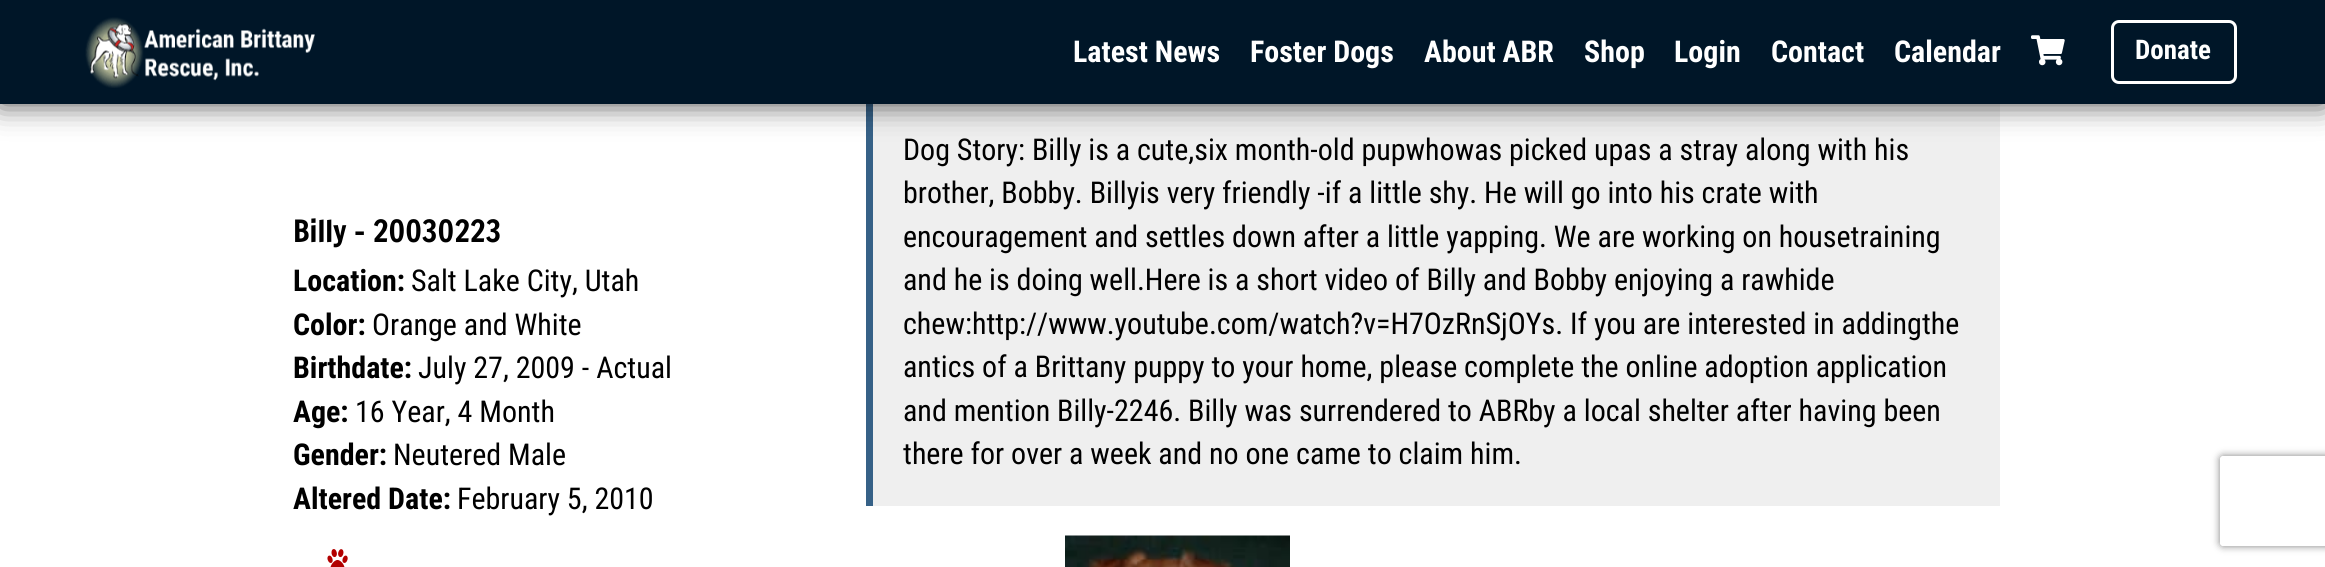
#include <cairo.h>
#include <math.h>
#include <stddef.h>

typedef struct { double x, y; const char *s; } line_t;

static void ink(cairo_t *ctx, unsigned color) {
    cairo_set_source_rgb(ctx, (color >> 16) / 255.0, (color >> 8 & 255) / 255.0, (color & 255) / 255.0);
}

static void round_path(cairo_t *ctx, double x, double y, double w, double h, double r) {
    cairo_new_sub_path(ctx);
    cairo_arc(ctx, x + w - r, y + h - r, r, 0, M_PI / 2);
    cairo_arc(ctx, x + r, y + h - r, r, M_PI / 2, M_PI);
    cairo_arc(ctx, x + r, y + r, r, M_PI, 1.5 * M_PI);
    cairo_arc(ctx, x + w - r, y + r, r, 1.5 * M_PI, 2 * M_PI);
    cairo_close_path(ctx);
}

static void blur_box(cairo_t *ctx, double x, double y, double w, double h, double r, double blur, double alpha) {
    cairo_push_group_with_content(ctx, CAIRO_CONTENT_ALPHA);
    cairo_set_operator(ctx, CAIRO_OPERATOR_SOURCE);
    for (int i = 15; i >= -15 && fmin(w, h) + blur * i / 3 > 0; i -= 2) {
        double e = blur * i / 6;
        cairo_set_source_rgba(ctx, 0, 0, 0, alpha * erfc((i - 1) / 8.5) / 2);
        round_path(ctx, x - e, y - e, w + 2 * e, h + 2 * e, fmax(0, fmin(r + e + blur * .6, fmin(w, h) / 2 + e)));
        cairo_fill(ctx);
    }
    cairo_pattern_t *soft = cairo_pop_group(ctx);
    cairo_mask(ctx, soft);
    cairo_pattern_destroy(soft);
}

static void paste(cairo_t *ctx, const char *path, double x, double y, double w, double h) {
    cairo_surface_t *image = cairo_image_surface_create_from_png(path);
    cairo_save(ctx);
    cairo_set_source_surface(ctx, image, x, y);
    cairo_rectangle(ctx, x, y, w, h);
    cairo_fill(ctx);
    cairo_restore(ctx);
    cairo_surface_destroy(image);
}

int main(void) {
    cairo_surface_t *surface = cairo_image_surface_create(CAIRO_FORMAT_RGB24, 2325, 567);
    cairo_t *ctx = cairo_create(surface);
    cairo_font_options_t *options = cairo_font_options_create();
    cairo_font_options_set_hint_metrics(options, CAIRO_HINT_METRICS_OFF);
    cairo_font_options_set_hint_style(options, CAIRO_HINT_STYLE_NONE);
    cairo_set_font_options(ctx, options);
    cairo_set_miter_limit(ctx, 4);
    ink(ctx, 0xFFFFFF);
    cairo_paint(ctx);
    ink(ctx, 0xEFEFEF);
    cairo_rectangle(ctx, 873, 104, 1127, 402);
    cairo_fill(ctx);
    ink(ctx, 0x366187);
    cairo_rectangle(ctx, 866, 98, 7, 408);
    cairo_fill(ctx);
    ink(ctx, 0x000000);
    blur_box(ctx, 0, 0, 2325, 104, 0, 15, 0.71);
    ink(ctx, 0x001628);
    cairo_rectangle(ctx, 0, 0, 2325, 104);
    cairo_fill(ctx);
    paste(ctx, "media/1.png", 85, 17, 230, 71);
    cairo_select_font_face(ctx, "Roboto Condensed", CAIRO_FONT_SLANT_NORMAL, CAIRO_FONT_WEIGHT_BOLD);
    cairo_set_font_size(ctx, 30);
    ink(ctx, 0xFFFFFF);
    {
        static const line_t items[] = {
            {1073, 62, "Latest News"},
            {1250, 62, "Foster Dogs"},
            {1424, 62, "About ABR"},
            {1584, 62, "Shop"},
            {1674, 62, "Login"},
            {1771, 62, "Contact"},
            {1894, 62, "Calendar"},
        };
        for (size_t i = 0; i < sizeof items / sizeof *items; i++) {
            cairo_move_to(ctx, items[i].x, items[i].y);
            cairo_show_text(ctx, items[i].s);
        }
    }
    paste(ctx, "media/2.png", 2031, 35, 34, 31);
    round_path(ctx, 2112.5, 21.5, 123, 61, 6.5);
    cairo_set_line_width(ctx, 3);
    cairo_stroke(ctx);
    cairo_set_font_size(ctx, 27);
    cairo_move_to(ctx, 2135, 59);
    cairo_show_text(ctx, "Donate");
    cairo_select_font_face(ctx, "Francois One", CAIRO_FONT_SLANT_NORMAL, CAIRO_FONT_WEIGHT_NORMAL);
    cairo_set_font_size(ctx, 30);
    ink(ctx, 0x000000);
    cairo_move_to(ctx, 293, 242);
    cairo_show_text(ctx, "Billy - 20030223");
    cairo_select_font_face(ctx, "Roboto Condensed", CAIRO_FONT_SLANT_NORMAL, CAIRO_FONT_WEIGHT_BOLD);
    cairo_move_to(ctx, 293, 291);
    cairo_show_text(ctx, "Location:");
    cairo_select_font_face(ctx, "Roboto Condensed", CAIRO_FONT_SLANT_NORMAL, CAIRO_FONT_WEIGHT_NORMAL);
    cairo_move_to(ctx, 411, 291);
    cairo_show_text(ctx, "Salt Lake City, Utah");
    cairo_select_font_face(ctx, "Roboto Condensed", CAIRO_FONT_SLANT_NORMAL, CAIRO_FONT_WEIGHT_BOLD);
    cairo_move_to(ctx, 293, 335);
    cairo_show_text(ctx, "Color:");
    cairo_select_font_face(ctx, "Roboto Condensed", CAIRO_FONT_SLANT_NORMAL, CAIRO_FONT_WEIGHT_NORMAL);
    cairo_move_to(ctx, 372, 335);
    cairo_show_text(ctx, "Orange and White");
    cairo_select_font_face(ctx, "Roboto Condensed", CAIRO_FONT_SLANT_NORMAL, CAIRO_FONT_WEIGHT_BOLD);
    cairo_move_to(ctx, 293, 378);
    cairo_show_text(ctx, "Birthdate:");
    cairo_select_font_face(ctx, "Roboto Condensed", CAIRO_FONT_SLANT_NORMAL, CAIRO_FONT_WEIGHT_NORMAL);
    cairo_move_to(ctx, 418, 378);
    cairo_show_text(ctx, "July 27, 2009 - Actual");
    cairo_select_font_face(ctx, "Roboto Condensed", CAIRO_FONT_SLANT_NORMAL, CAIRO_FONT_WEIGHT_BOLD);
    cairo_move_to(ctx, 293, 422);
    cairo_show_text(ctx, "Age:");
    cairo_select_font_face(ctx, "Roboto Condensed", CAIRO_FONT_SLANT_NORMAL, CAIRO_FONT_WEIGHT_NORMAL);
    cairo_move_to(ctx, 355, 422);
    cairo_show_text(ctx, "16 Year, 4 Month");
    cairo_select_font_face(ctx, "Roboto Condensed", CAIRO_FONT_SLANT_NORMAL, CAIRO_FONT_WEIGHT_BOLD);
    cairo_move_to(ctx, 293, 465);
    cairo_show_text(ctx, "Gender:");
    cairo_select_font_face(ctx, "Roboto Condensed", CAIRO_FONT_SLANT_NORMAL, CAIRO_FONT_WEIGHT_NORMAL);
    cairo_move_to(ctx, 393, 465);
    cairo_show_text(ctx, "Neutered Male");
    cairo_select_font_face(ctx, "Roboto Condensed", CAIRO_FONT_SLANT_NORMAL, CAIRO_FONT_WEIGHT_BOLD);
    cairo_move_to(ctx, 293, 509);
    cairo_show_text(ctx, "Altered Date:");
    cairo_select_font_face(ctx, "Roboto Condensed", CAIRO_FONT_SLANT_NORMAL, CAIRO_FONT_WEIGHT_NORMAL);
    cairo_move_to(ctx, 457, 509);
    cairo_show_text(ctx, "February 5, 2010");
    paste(ctx, "media/3.png", 327, 549, 21, 18);
    {
        static const line_t items[] = {
            {903, 160, "Dog Story: Billy is a cute,six month-old pupwhowas picked upas a stray along with his"},
            {903, 203, "brother, Bobby. Billyis very friendly -if a little shy. He will go into his crate with"},
            {903, 247, "encouragement and settles down after a little yapping. We are working on housetraining"},
            {903, 290, "and he is doing well.Here is a short video of Billy and Bobby enjoying a rawhide"},
            {903, 334, "chew:http://www.youtube.com/watch?v=H7OzRnSjOYs. If you are interested in addingthe"},
            {903, 377, "antics of a Brittany puppy to your home, please complete the online adoption application"},
            {903, 421, "and mention Billy-2246. Billy was surrendered to ABRby a local shelter after having been"},
            {903, 464, "there for over a week and no one came to claim him."},
        };
        for (size_t i = 0; i < sizeof items / sizeof *items; i++) {
            cairo_move_to(ctx, items[i].x, items[i].y);
            cairo_show_text(ctx, items[i].s);
        }
    }
    paste(ctx, "media/4.png", 1065, 535, 225, 32);
    cairo_save(ctx);
    cairo_set_fill_rule(ctx, CAIRO_FILL_RULE_EVEN_ODD);
    cairo_new_path(ctx);
    cairo_move_to(ctx, 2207, 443);
    cairo_line_to(ctx, 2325, 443);
    cairo_line_to(ctx, 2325, 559);
    cairo_line_to(ctx, 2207, 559);
    cairo_close_path(ctx);
    cairo_move_to(ctx, 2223, 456);
    cairo_line_to(ctx, 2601, 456);
    cairo_curve_to(ctx, 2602.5, 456, 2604, 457.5, 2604, 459);
    cairo_line_to(ctx, 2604, 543);
    cairo_curve_to(ctx, 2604, 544.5, 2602.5, 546, 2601, 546);
    cairo_line_to(ctx, 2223, 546);
    cairo_curve_to(ctx, 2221.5, 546, 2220, 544.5, 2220, 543);
    cairo_line_to(ctx, 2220, 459);
    cairo_curve_to(ctx, 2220, 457.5, 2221.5, 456, 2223, 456);
    cairo_close_path(ctx);
    cairo_clip(ctx);
    ink(ctx, 0x808080);
    blur_box(ctx, 2220, 456, 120, 90, 3, 4, 1);
    cairo_restore(ctx);
    cairo_surface_write_to_png(surface, "image.png");
    cairo_font_options_destroy(options);
    cairo_destroy(ctx);
    cairo_surface_destroy(surface);
    return 0;
}
